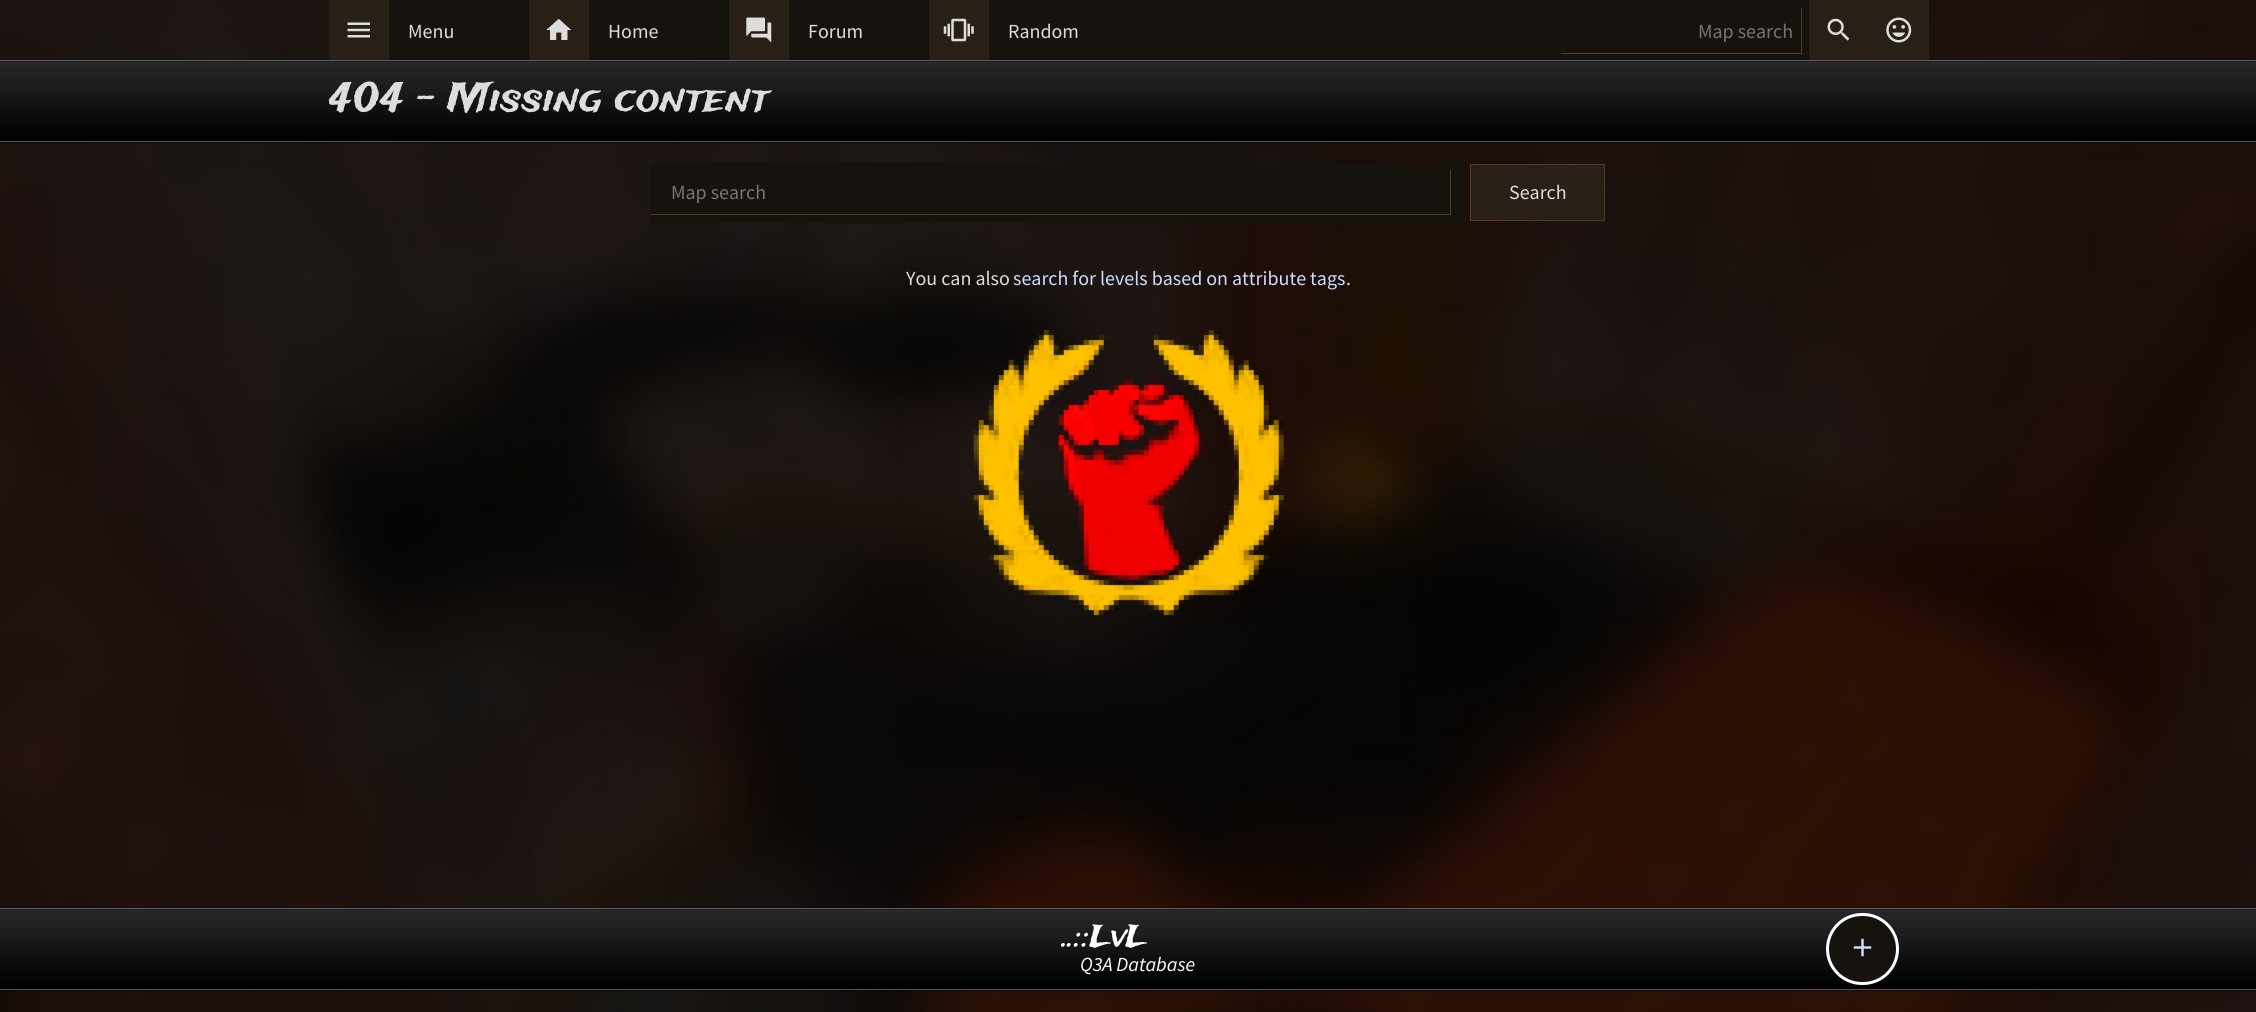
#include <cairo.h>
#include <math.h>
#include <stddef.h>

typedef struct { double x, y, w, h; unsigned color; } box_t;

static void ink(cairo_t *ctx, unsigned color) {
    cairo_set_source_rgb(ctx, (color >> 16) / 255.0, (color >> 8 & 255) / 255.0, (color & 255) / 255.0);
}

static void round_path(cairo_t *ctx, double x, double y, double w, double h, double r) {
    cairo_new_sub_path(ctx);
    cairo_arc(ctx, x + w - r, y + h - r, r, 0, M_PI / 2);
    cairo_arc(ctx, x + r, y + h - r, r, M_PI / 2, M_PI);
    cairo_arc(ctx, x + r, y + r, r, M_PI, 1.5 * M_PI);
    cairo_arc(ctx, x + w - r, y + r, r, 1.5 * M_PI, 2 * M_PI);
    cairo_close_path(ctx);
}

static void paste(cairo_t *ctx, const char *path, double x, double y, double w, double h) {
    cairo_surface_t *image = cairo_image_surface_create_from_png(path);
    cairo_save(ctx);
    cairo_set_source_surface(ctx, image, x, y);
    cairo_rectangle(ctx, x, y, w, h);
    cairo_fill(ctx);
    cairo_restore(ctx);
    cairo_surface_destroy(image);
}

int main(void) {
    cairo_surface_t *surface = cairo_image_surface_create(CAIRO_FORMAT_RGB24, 2256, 1012);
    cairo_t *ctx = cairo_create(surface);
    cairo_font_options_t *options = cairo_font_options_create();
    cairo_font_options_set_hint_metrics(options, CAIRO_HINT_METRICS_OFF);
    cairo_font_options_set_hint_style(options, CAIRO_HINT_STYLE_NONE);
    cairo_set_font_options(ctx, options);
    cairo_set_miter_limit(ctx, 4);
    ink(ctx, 0xFFFFFF);
    cairo_paint(ctx);
    paste(ctx, "media/1.png", 0, 0, 2256, 1012);
    ink(ctx, 0x16130F);
    cairo_rectangle(ctx, 389, 0, 1420, 60);
    cairo_fill(ctx);
    ink(ctx, 0x282016);
    cairo_rectangle(ctx, 329, 0, 60, 60);
    cairo_fill(ctx);
    paste(ctx, "media/2.png", 347, 22, 23, 16);
    cairo_select_font_face(ctx, "Source Sans Pro", CAIRO_FONT_SLANT_NORMAL, CAIRO_FONT_WEIGHT_NORMAL);
    cairo_set_font_size(ctx, 20);
    ink(ctx, 0xDDDDDD);
    cairo_move_to(ctx, 408, 38);
    cairo_show_text(ctx, "Menu");
    ink(ctx, 0x282016);
    cairo_rectangle(ctx, 529, 0, 60, 60);
    cairo_fill(ctx);
    paste(ctx, "media/3.png", 546, 18, 26, 22);
    ink(ctx, 0xDDDDDD);
    cairo_move_to(ctx, 608, 38);
    cairo_show_text(ctx, "Home");
    ink(ctx, 0x282016);
    cairo_rectangle(ctx, 729, 0, 60, 60);
    cairo_fill(ctx);
    paste(ctx, "media/4.png", 746, 17, 26, 26);
    ink(ctx, 0xDDDDDD);
    cairo_move_to(ctx, 808, 38);
    cairo_show_text(ctx, "Forum");
    ink(ctx, 0x282016);
    cairo_rectangle(ctx, 929, 0, 60, 60);
    cairo_fill(ctx);
    paste(ctx, "media/5.png", 943, 18, 31, 24);
    ink(ctx, 0xDDDDDD);
    cairo_move_to(ctx, 1008, 38);
    cairo_show_text(ctx, "Random");
    ink(ctx, 0x543C22);
    cairo_rectangle(ctx, 1801, 8, 1, 46);
    cairo_fill(ctx);
    cairo_rectangle(ctx, 1561, 53, 242, 1);
    cairo_fill(ctx);
    ink(ctx, 0x757575);
    cairo_move_to(ctx, 1698, 38);
    cairo_show_text(ctx, "Map search");
    ink(ctx, 0x282016);
    cairo_rectangle(ctx, 1809, 0, 120, 60);
    cairo_fill(ctx);
    paste(ctx, "media/6.png", 1827, 18, 23, 23);
    paste(ctx, "media/7.png", 1886, 17, 26, 26);
    paste(ctx, "media/8.png", 0, 61, 2256, 82);
    ink(ctx, 0x56585D);
    cairo_rectangle(ctx, 0, 60, 2256, 1);
    cairo_fill(ctx);
    cairo_rectangle(ctx, 0, 141, 2256, 1);
    cairo_fill(ctx);
    cairo_save(ctx);
    cairo_rectangle(ctx, 329, 61, 1600, 80);
    cairo_clip(ctx);
    cairo_select_font_face(ctx, "Trade Winds", CAIRO_FONT_SLANT_NORMAL, CAIRO_FONT_WEIGHT_NORMAL);
    cairo_set_font_size(ctx, 40);
    ink(ctx, 0xDDDDDD);
    cairo_move_to(ctx, 328, 111);
    cairo_show_text(ctx, "404 - Missing content");
    cairo_restore(ctx);
    {
        static const box_t items[] = {
            {651, 163, 815, 60, 0x16130F},
            {1450, 170, 1, 45, 0x543C22},
            {651, 214, 800, 1, 0x543C22},
        };
        for (size_t i = 0; i < sizeof items / sizeof *items; i++) {
            ink(ctx, items[i].color);
            cairo_rectangle(ctx, items[i].x, items[i].y, items[i].w, items[i].h);
            cairo_fill(ctx);
        }
    }
    ink(ctx, 0x757575);
    cairo_move_to(ctx, 671, 199);
    cairo_show_text(ctx, "Map search");
    ink(ctx, 0x282016);
    cairo_rectangle(ctx, 1470.5, 164.5, 134, 56);
    cairo_fill_preserve(ctx);
    ink(ctx, 0x543C22);
    cairo_set_line_width(ctx, 1);
    cairo_stroke(ctx);
    ink(ctx, 0xDDDDDD);
    cairo_move_to(ctx, 1509, 199);
    cairo_show_text(ctx, "Search");
    cairo_move_to(ctx, 906, 285);
    cairo_show_text(ctx, "You can also");
    ink(ctx, 0xCCDDFF);
    cairo_move_to(ctx, 1013, 285);
    cairo_show_text(ctx, "search for levels based on attribute tags");
    ink(ctx, 0xDDDDDD);
    cairo_move_to(ctx, 1346, 285);
    cairo_show_text(ctx, ".");
    paste(ctx, "media/9.png", 973, 330, 311, 286);
    paste(ctx, "media/11.png", 0, 909, 2256, 82);
    ink(ctx, 0x16130F);
    round_path(ctx, 1827.5, 914.5, 70, 69, 34.5);
    cairo_fill_preserve(ctx);
    ink(ctx, 0xFFFFFF);
    cairo_set_line_width(ctx, 3);
    cairo_stroke(ctx);
    paste(ctx, "media/10.png", 1853, 938, 19, 19);
    ink(ctx, 0x56585D);
    cairo_rectangle(ctx, 0, 908, 2256, 1);
    cairo_fill(ctx);
    cairo_rectangle(ctx, 0, 989, 2256, 1);
    cairo_fill(ctx);
    cairo_select_font_face(ctx, "Trade Winds", CAIRO_FONT_SLANT_NORMAL, CAIRO_FONT_WEIGHT_NORMAL);
    cairo_set_font_size(ctx, 30);
    ink(ctx, 0xFFFFFF);
    cairo_move_to(ctx, 1063, 946);
    cairo_show_text(ctx, "..::LvL");
    cairo_select_font_face(ctx, "Source Sans Pro", CAIRO_FONT_SLANT_ITALIC, CAIRO_FONT_WEIGHT_NORMAL);
    cairo_set_font_size(ctx, 20);
    cairo_move_to(ctx, 1080, 971);
    cairo_show_text(ctx, "Q3A Database");
    cairo_surface_write_to_png(surface, "image.png");
    cairo_font_options_destroy(options);
    cairo_destroy(ctx);
    cairo_surface_destroy(surface);
    return 0;
}
